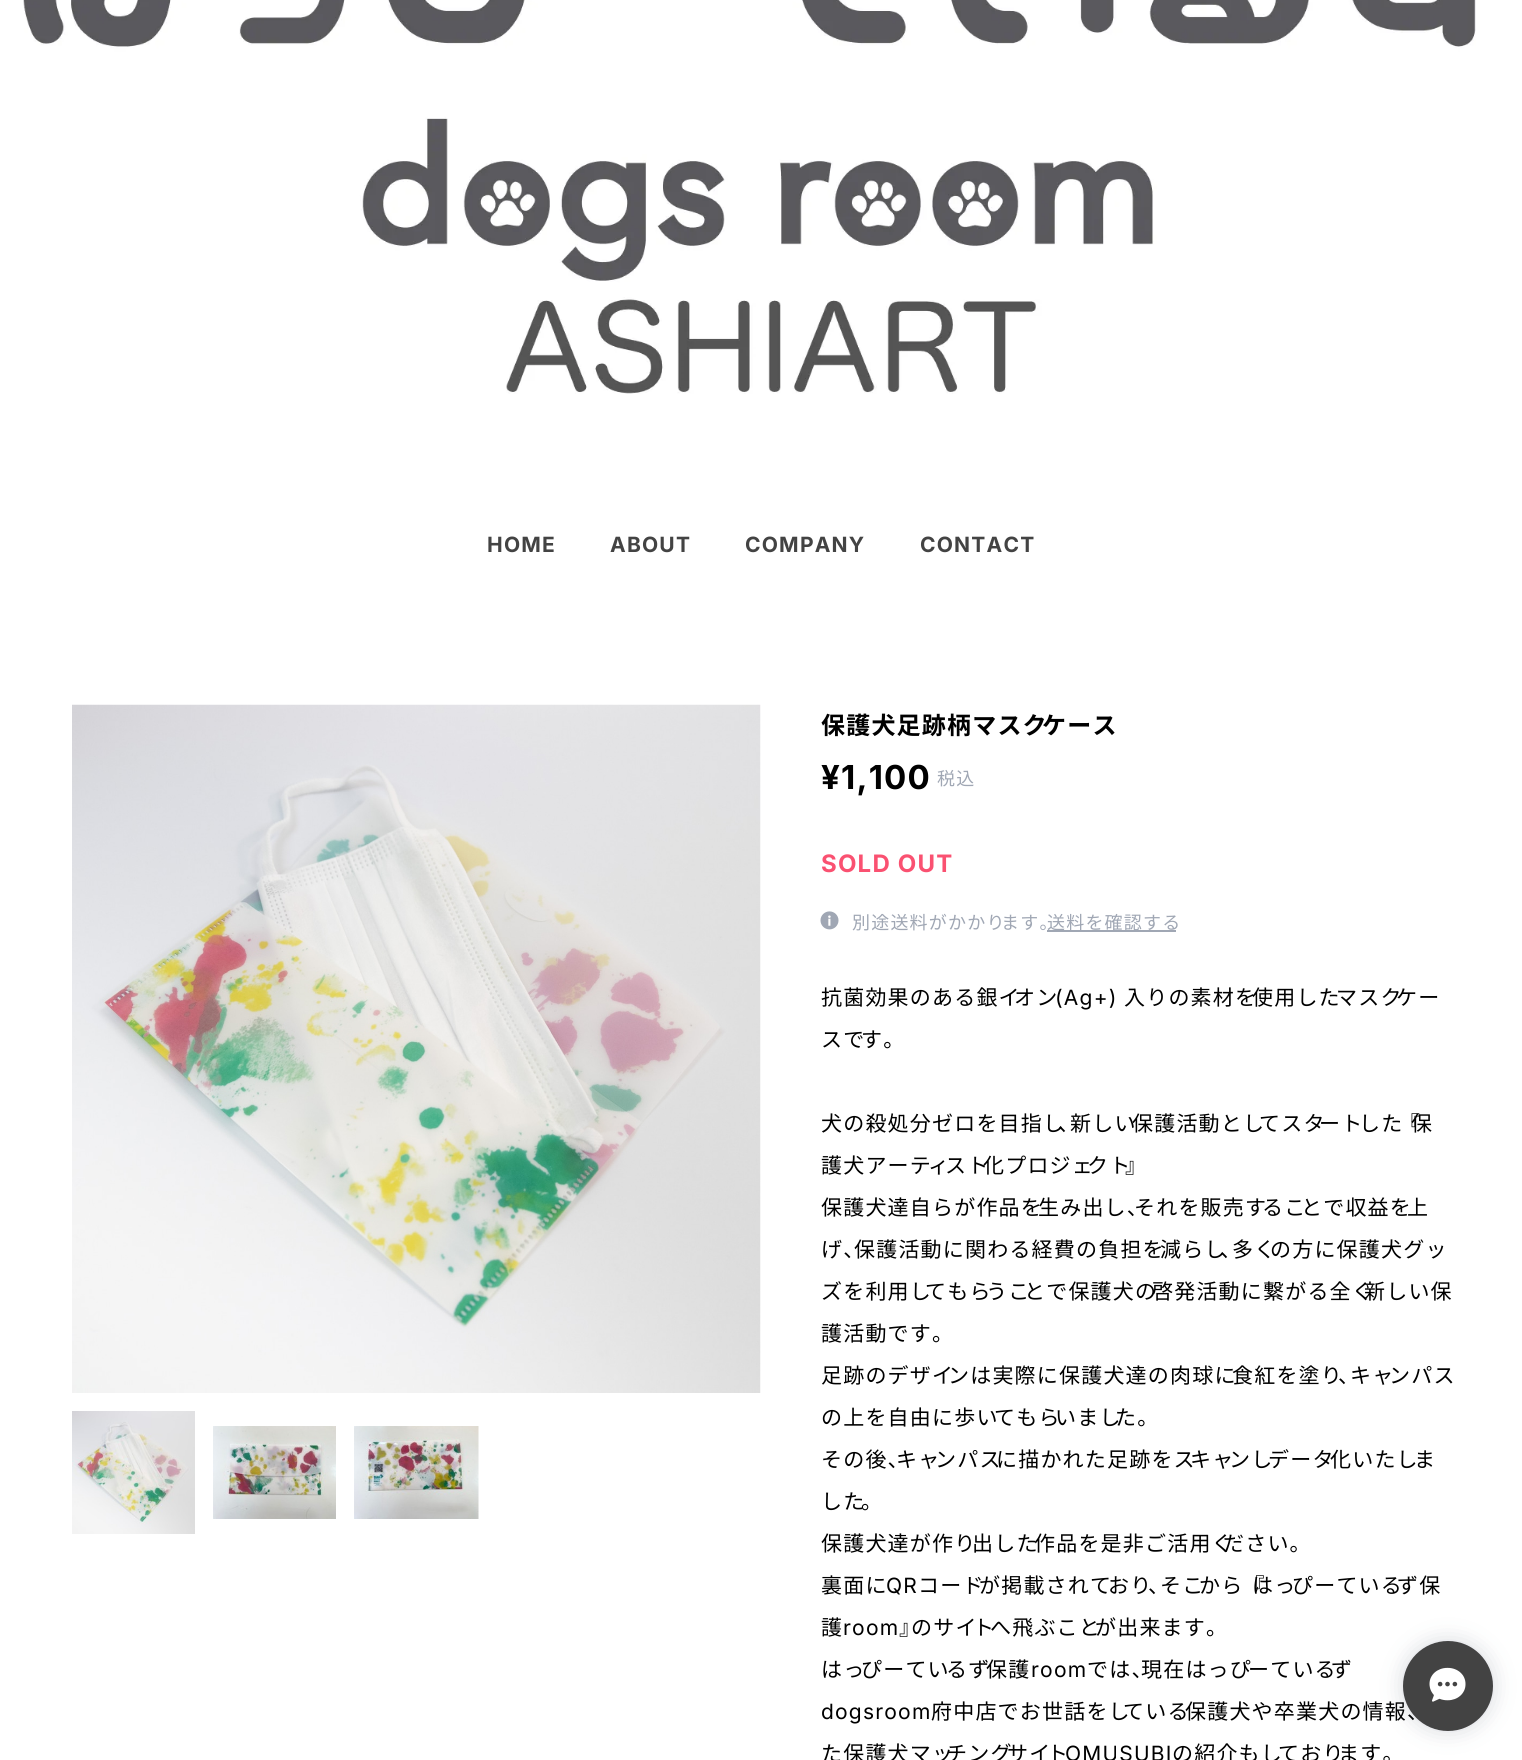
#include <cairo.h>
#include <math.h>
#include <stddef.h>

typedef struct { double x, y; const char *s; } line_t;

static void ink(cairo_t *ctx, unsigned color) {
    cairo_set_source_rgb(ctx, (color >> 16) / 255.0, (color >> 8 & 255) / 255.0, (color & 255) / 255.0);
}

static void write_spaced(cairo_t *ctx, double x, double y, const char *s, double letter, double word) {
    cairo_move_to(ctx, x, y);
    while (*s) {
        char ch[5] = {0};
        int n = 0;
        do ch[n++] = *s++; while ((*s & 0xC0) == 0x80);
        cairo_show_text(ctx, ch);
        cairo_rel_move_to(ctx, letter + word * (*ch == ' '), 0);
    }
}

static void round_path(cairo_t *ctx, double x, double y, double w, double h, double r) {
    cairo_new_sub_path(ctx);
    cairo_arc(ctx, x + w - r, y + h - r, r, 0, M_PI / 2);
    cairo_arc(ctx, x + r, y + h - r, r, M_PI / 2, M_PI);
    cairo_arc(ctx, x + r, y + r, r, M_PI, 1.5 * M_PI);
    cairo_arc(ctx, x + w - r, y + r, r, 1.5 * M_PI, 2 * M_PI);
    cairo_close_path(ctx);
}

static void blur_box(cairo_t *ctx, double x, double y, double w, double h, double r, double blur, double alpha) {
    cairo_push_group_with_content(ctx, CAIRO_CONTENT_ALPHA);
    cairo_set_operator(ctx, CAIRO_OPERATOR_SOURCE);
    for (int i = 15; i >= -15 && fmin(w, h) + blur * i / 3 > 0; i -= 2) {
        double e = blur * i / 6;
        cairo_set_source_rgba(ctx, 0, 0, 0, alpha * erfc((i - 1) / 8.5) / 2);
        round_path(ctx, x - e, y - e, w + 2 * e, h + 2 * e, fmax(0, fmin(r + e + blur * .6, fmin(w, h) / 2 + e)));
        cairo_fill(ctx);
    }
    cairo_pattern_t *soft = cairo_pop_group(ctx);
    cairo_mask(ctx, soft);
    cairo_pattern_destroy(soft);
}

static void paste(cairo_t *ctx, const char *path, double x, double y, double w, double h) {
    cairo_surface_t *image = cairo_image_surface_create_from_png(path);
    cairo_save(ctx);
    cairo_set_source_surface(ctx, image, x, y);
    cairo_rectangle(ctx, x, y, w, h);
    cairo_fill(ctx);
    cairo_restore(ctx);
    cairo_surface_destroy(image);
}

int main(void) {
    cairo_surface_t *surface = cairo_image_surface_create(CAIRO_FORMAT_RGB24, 1522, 1760);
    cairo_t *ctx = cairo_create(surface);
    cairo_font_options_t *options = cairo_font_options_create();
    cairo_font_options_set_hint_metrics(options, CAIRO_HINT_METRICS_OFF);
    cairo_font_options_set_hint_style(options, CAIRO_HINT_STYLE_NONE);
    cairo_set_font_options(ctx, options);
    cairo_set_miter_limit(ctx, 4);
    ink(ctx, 0xFFFFFF);
    cairo_paint(ctx);
    paste(ctx, "media/1.png", 23, 0, 1453, 394);
    cairo_select_font_face(ctx, "Inter", CAIRO_FONT_SLANT_NORMAL, CAIRO_FONT_WEIGHT_BOLD);
    cairo_set_font_size(ctx, 21);
    ink(ctx, 0x434343);
    {
        static const line_t items[] = {
            {487, 552, "HOME"},
            {610, 552, "ABOUT"},
            {745, 552, "COMPANY"},
            {920, 552, "CONTACT"},
        };
        for (size_t i = 0; i < sizeof items / sizeof *items; i++) {
            write_spaced(ctx, items[i].x, items[i].y, items[i].s, 1.2, 0);
        }
    }
    paste(ctx, "media/2.png", 72, 704, 689, 689);
    paste(ctx, "media/3.png", 72, 1411, 123, 123);
    paste(ctx, "media/4.png", 213, 1426, 123, 93);
    paste(ctx, "media/5.png", 354, 1426, 125, 93);
    cairo_select_font_face(ctx, "Noto Sans JP", CAIRO_FONT_SLANT_NORMAL, CAIRO_FONT_WEIGHT_BOLD);
    cairo_set_font_size(ctx, 24);
    ink(ctx, 0x000000);
    write_spaced(ctx, 821, 734, "保護犬足跡柄マスク", 1.2, 0);
    write_spaced(ctx, 1042, 734, "ケース", 1.2, 0);
    cairo_select_font_face(ctx, "Inter", CAIRO_FONT_SLANT_NORMAL, CAIRO_FONT_WEIGHT_BOLD);
    cairo_set_font_size(ctx, 33);
    write_spaced(ctx, 821, 789, "¥1,100", 1.2, 0);
    cairo_select_font_face(ctx, "Noto Sans JP", CAIRO_FONT_SLANT_NORMAL, CAIRO_FONT_WEIGHT_NORMAL);
    cairo_set_font_size(ctx, 18);
    ink(ctx, 0xA0A7B4);
    write_spaced(ctx, 937, 785, "税込", 1.2, 0);
    cairo_select_font_face(ctx, "Inter", CAIRO_FONT_SLANT_NORMAL, CAIRO_FONT_WEIGHT_BOLD);
    cairo_set_font_size(ctx, 24);
    ink(ctx, 0xFA5171);
    write_spaced(ctx, 821, 872, "SOLD OUT", 1.2, 0);
    paste(ctx, "media/6.png", 820, 911, 19, 19);
    cairo_select_font_face(ctx, "Noto Sans JP", CAIRO_FONT_SLANT_NORMAL, CAIRO_FONT_WEIGHT_NORMAL);
    cairo_set_font_size(ctx, 18);
    ink(ctx, 0xA0A7B4);
    write_spaced(ctx, 852, 929, "別途送料がかかり", 1.2, 0);
    write_spaced(ctx, 1001, 929, "ます。", 1.2, 0);
    cairo_rectangle(ctx, 1047, 930, 129, 2);
    cairo_fill(ctx);
    write_spaced(ctx, 1047, 929, "送料を確認する", 1.2, 0);
    cairo_set_font_size(ctx, 21);
    ink(ctx, 0x000000);
    write_spaced(ctx, 821, 1005, "抗菌効果のある銀イ", 1.2, 0);
    write_spaced(ctx, 1014, 1005, "オン", 1.2, 0);
    cairo_select_font_face(ctx, "Inter", CAIRO_FONT_SLANT_NORMAL, CAIRO_FONT_WEIGHT_NORMAL);
    write_spaced(ctx, 1055, 1005, "(Ag+)", 1.2, 0);
    cairo_select_font_face(ctx, "Noto Sans JP", CAIRO_FONT_SLANT_NORMAL, CAIRO_FONT_WEIGHT_NORMAL);
    {
        static const line_t items[] = {
            {1124, 1005, "入りの素材を"},
            {1252, 1005, "使用した"},
            {1336, 1005, "マスク"},
            {1396, 1005, "ケー"},
            {821, 1047, "スで"},
            {861, 1047, "す。"},
            {821, 1131, "犬の殺処分ゼロを目指し"},
            {1058, 1131, "、"},
            {1070, 1131, "新しい"},
            {1132, 1131, "保護活動とし"},
            {1259, 1131, "てスタ"},
            {1319, 1131, "ート"},
            {1359, 1131, "した"},
            {1399, 1131, "『"},
            {1411, 1131, "保"},
            {821, 1173, "護犬アーテ"},
            {928, 1173, "ィ"},
            {945, 1173, "スト"},
            {983, 1173, "化プロジェ"},
            {1087, 1173, "クト"},
            {1125, 1173, "』"},
            {821, 1215, "保護犬達自らが作品を"},
            {1038, 1215, "生み出し、"},
            {1134, 1215, "それを販売す"},
            {1262, 1215, "るこ"},
            {1301, 1215, "とで収益を"},
            {1407, 1215, "上"},
            {821, 1257, "げ、"},
            {854, 1257, "保護活動に関わる経費の負担を"},
            {1160, 1257, "減らし"},
            {1220, 1257, "、"},
            {1232, 1257, "多く"},
            {1270, 1257, "の方に保護犬グッ"},
            {821, 1299, "ズを利用し"},
            {925, 1299, "てもら"},
            {986, 1299, "うこ"},
            {1024, 1299, "とで保護犬の"},
            {1152, 1299, "啓発活動に繋がる全く"},
            {1364, 1299, "新しい保"},
            {821, 1341, "護活動です。"},
            {821, 1383, "足跡のデザイ"},
            {948, 1383, "ンは実際に保護犬達の肉球に"},
            {1232, 1383, "食紅を塗り"},
            {1338, 1383, "、"},
            {1350, 1383, "キャ"},
            {1389, 1383, "ンパス"},
            {821, 1425, "の上を自由に歩い"},
            {994, 1425, "てもら"},
            {1055, 1425, "いまし"},
            {1115, 1425, "た。"},
            {821, 1467, "その後、"},
            {896, 1467, "キャ"},
            {935, 1467, "ンパス"},
            {996, 1467, "に描かれた足跡をス"},
            {1190, 1467, "キャ"},
            {1229, 1467, "ンし"},
            {1268, 1467, "データ"},
            {1330, 1467, "化いたし"},
            {1414, 1467, "ま"},
            {821, 1509, "した"},
            {861, 1509, "。"},
            {821, 1551, "保護犬達が作り"},
            {972, 1551, "出した"},
            {1034, 1551, "作品を是非ご活用く"},
            {1223, 1551, "ださい。"},
            {821, 1593, "裏面に"},
        };
        for (size_t i = 0; i < sizeof items / sizeof *items; i++) {
            write_spaced(ctx, items[i].x, items[i].y, items[i].s, 1.2, 0);
        }
    }
    cairo_select_font_face(ctx, "Inter", CAIRO_FONT_SLANT_NORMAL, CAIRO_FONT_WEIGHT_NORMAL);
    write_spaced(ctx, 886, 1593, "QR", 1.2, 0);
    cairo_select_font_face(ctx, "Noto Sans JP", CAIRO_FONT_SLANT_NORMAL, CAIRO_FONT_WEIGHT_NORMAL);
    write_spaced(ctx, 918, 1593, "コード", 1.2, 0);
    write_spaced(ctx, 979, 1593, "が掲載されて", 1.2, 0);
    write_spaced(ctx, 1108, 1593, "おり", 1.2, 0);
    write_spaced(ctx, 1148, 1593, "、", 1.2, 0);
    write_spaced(ctx, 1160, 1593, "そこ", 1.2, 0);
    write_spaced(ctx, 1199, 1593, "から『", 1.2, 0);
    write_spaced(ctx, 1252, 1593, "はっ", 1.2, 0);
    write_spaced(ctx, 1292, 1593, "ぴーている", 1.2, 0);
    write_spaced(ctx, 1397, 1593, "ず保", 1.2, 0);
    write_spaced(ctx, 821, 1635, "護", 1.2, 0);
    cairo_select_font_face(ctx, "Inter", CAIRO_FONT_SLANT_NORMAL, CAIRO_FONT_WEIGHT_NORMAL);
    write_spaced(ctx, 843, 1635, "room", 1.2, 0);
    cairo_select_font_face(ctx, "Noto Sans JP", CAIRO_FONT_SLANT_NORMAL, CAIRO_FONT_WEIGHT_NORMAL);
    write_spaced(ctx, 899, 1635, "』", 1.2, 0);
    write_spaced(ctx, 911, 1635, "のサイ", 1.2, 0);
    write_spaced(ctx, 973, 1635, "ト", 1.2, 0);
    write_spaced(ctx, 990, 1635, "へ飛ぶこと", 1.2, 0);
    write_spaced(ctx, 1095, 1635, "が出来ます。", 1.2, 0);
    write_spaced(ctx, 821, 1677, "はっ", 1.2, 0);
    write_spaced(ctx, 861, 1677, "ぴーてい", 1.2, 0);
    write_spaced(ctx, 946, 1677, "るず", 1.2, 0);
    write_spaced(ctx, 986, 1677, "保護", 1.2, 0);
    cairo_select_font_face(ctx, "Inter", CAIRO_FONT_SLANT_NORMAL, CAIRO_FONT_WEIGHT_NORMAL);
    write_spaced(ctx, 1031, 1677, "room", 1.2, 0);
    cairo_select_font_face(ctx, "Noto Sans JP", CAIRO_FONT_SLANT_NORMAL, CAIRO_FONT_WEIGHT_NORMAL);
    write_spaced(ctx, 1087, 1677, "では、", 1.2, 0);
    write_spaced(ctx, 1141, 1677, "現在はっぴ", 1.2, 0);
    write_spaced(ctx, 1248, 1677, "ーている", 1.2, 0);
    write_spaced(ctx, 1331, 1677, "ず", 1.2, 0);
    cairo_select_font_face(ctx, "Inter", CAIRO_FONT_SLANT_NORMAL, CAIRO_FONT_WEIGHT_NORMAL);
    write_spaced(ctx, 821, 1719, "dogsroom", 1.2, 0);
    cairo_select_font_face(ctx, "Noto Sans JP", CAIRO_FONT_SLANT_NORMAL, CAIRO_FONT_WEIGHT_NORMAL);
    write_spaced(ctx, 931, 1719, "府中店でお世話をし", 1.2, 0);
    write_spaced(ctx, 1123, 1719, "ている", 1.2, 0);
    write_spaced(ctx, 1185, 1719, "保護犬や卒業犬の情報、", 1.2, 0);
    write_spaced(ctx, 821, 1761, "た保護犬マッ", 1.2, 0);
    write_spaced(ctx, 946, 1761, "チング", 1.2, 0);
    write_spaced(ctx, 1007, 1761, "サイ", 1.2, 0);
    write_spaced(ctx, 1047, 1761, "ト", 1.2, 0);
    cairo_select_font_face(ctx, "Inter", CAIRO_FONT_SLANT_NORMAL, CAIRO_FONT_WEIGHT_NORMAL);
    write_spaced(ctx, 1065, 1761, "OMUSUBI", 1.2, 0);
    cairo_select_font_face(ctx, "Noto Sans JP", CAIRO_FONT_SLANT_NORMAL, CAIRO_FONT_WEIGHT_NORMAL);
    write_spaced(ctx, 1172, 1761, "の紹介もし", 1.2, 0);
    write_spaced(ctx, 1278, 1761, "ており", 1.2, 0);
    write_spaced(ctx, 1338, 1761, "ます。", 1.2, 0);
    ink(ctx, 0x334258);
    blur_box(ctx, 1403, 1641, 90, 90, 45, 11, 0.2);
    ink(ctx, 0x434343);
    cairo_arc(ctx, 1448, 1686, 45, 0, 2 * M_PI);
    cairo_fill(ctx);
    paste(ctx, "media/7.png", 1429, 1667, 37, 35);
    cairo_surface_write_to_png(surface, "image.png");
    cairo_font_options_destroy(options);
    cairo_destroy(ctx);
    cairo_surface_destroy(surface);
    return 0;
}
